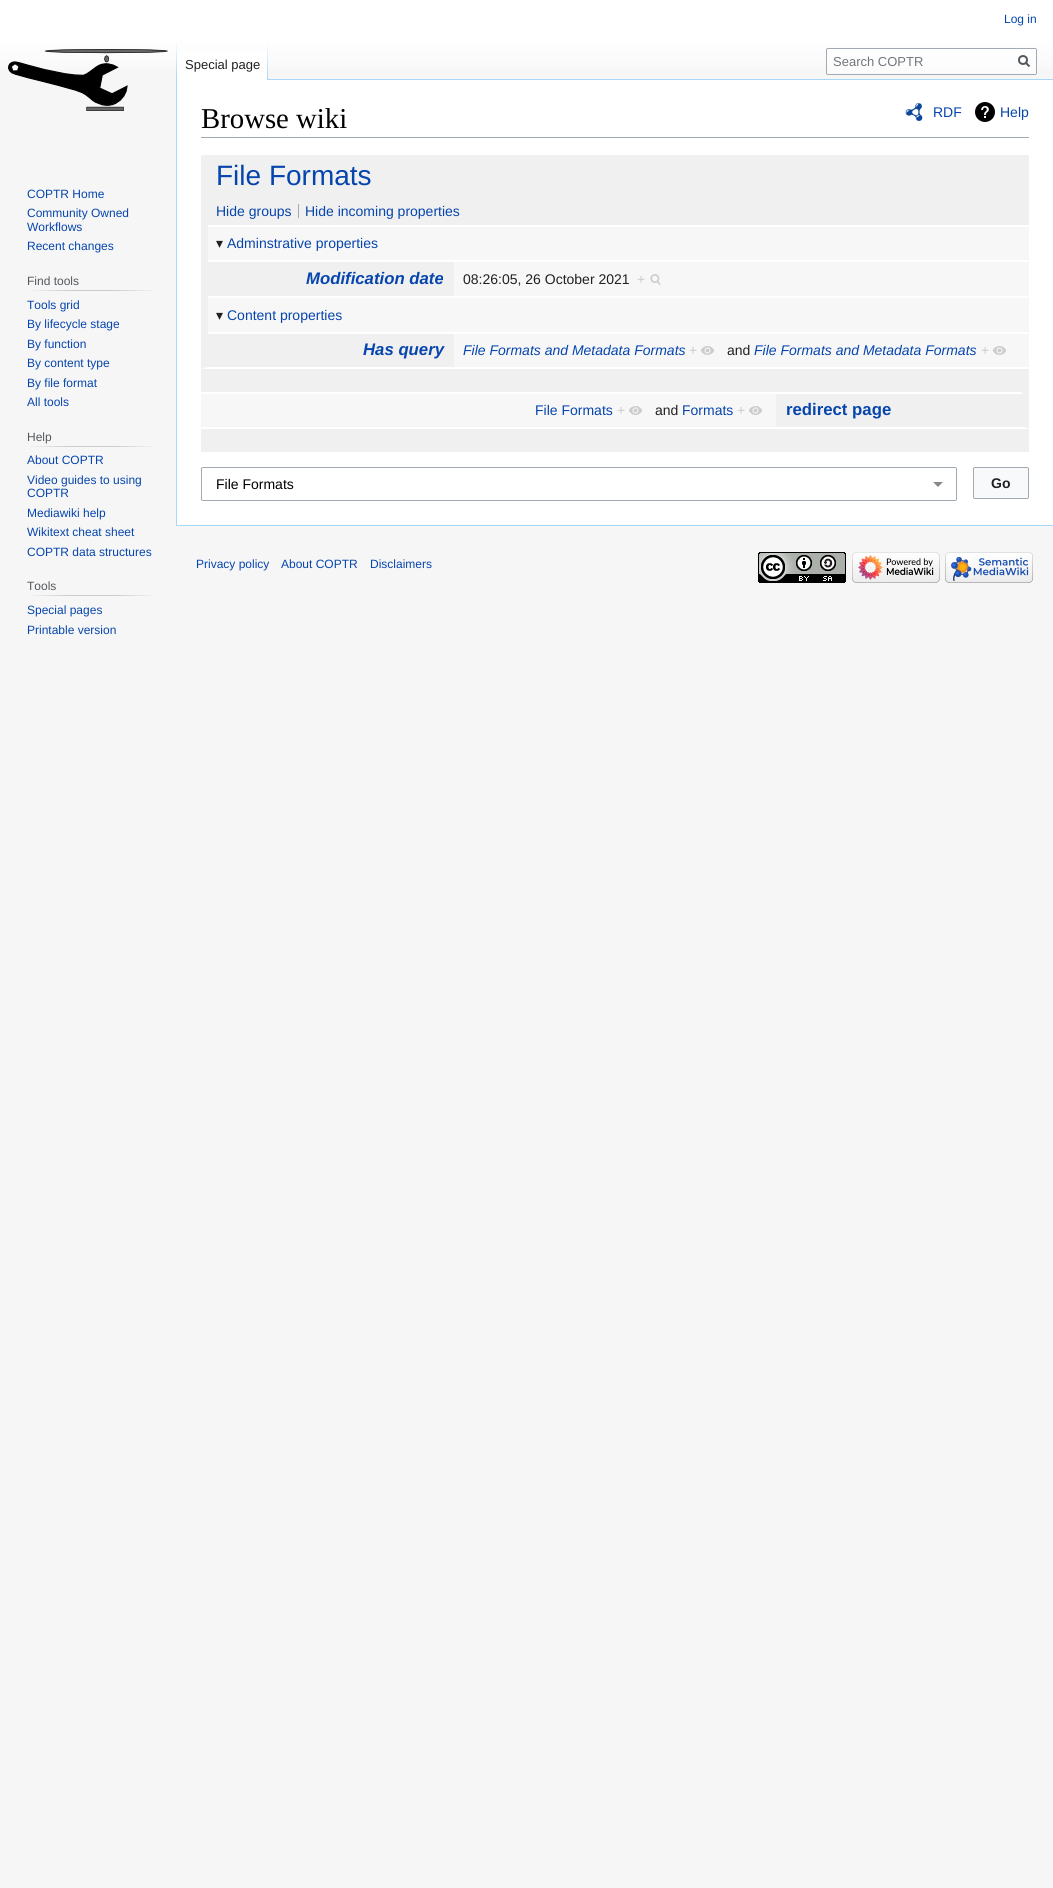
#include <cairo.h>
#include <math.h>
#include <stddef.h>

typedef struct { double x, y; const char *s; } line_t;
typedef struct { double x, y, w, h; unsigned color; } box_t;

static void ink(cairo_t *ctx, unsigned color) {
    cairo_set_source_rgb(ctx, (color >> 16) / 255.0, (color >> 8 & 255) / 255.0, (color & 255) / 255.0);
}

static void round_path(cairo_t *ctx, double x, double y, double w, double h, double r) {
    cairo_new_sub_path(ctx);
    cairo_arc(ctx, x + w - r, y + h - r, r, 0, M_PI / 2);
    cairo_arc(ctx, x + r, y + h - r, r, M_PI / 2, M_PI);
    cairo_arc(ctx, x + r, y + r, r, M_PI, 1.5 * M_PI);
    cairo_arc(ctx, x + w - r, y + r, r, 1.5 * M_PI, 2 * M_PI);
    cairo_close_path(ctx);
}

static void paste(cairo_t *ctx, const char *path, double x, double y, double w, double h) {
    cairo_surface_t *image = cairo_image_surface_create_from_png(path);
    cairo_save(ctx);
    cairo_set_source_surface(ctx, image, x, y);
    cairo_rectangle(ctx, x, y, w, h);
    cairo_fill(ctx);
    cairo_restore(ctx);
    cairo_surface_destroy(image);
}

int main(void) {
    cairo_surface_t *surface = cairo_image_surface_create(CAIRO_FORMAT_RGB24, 1053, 1888);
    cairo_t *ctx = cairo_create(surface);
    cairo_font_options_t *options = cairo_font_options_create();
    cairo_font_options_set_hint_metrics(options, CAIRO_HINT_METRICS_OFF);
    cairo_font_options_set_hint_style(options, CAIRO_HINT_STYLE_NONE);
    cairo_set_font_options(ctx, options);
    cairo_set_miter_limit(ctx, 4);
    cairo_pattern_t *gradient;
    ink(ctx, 0xF6F6F6);
    cairo_paint(ctx);
    gradient = cairo_pattern_create_linear(527, 0, 527, 80);
    cairo_pattern_add_color_stop_rgba(gradient, 0.5, 1, 1, 1, 1);
    cairo_pattern_add_color_stop_rgba(gradient, 1, 0.965, 0.965, 0.965, 1);
    cairo_set_source(ctx, gradient);
    cairo_pattern_destroy(gradient);
    cairo_rectangle(ctx, 0, 0, 1053, 69);
    cairo_fill(ctx);
    cairo_select_font_face(ctx, "Liberation Sans", CAIRO_FONT_SLANT_NORMAL, CAIRO_FONT_WEIGHT_NORMAL);
    cairo_set_font_size(ctx, 12);
    ink(ctx, 0x0645AD);
    cairo_move_to(ctx, 1004, 23);
    cairo_show_text(ctx, "Log in");
    ink(ctx, 0xA7D7F9);
    cairo_rectangle(ctx, 176, 525, 877, 1);
    cairo_fill(ctx);
    cairo_rectangle(ctx, 176, 79, 1, 447);
    cairo_fill(ctx);
    gradient = cairo_pattern_create_linear(177, 40, 177, 80);
    cairo_pattern_add_color_stop_rgba(gradient, 0, 0.655, 0.843, 0.976, 0);
    cairo_pattern_add_color_stop_rgba(gradient, 1, 0.655, 0.843, 0.976, 1);
    cairo_set_source(ctx, gradient);
    cairo_pattern_destroy(gradient);
    cairo_rectangle(ctx, 176, 40, 1, 40);
    cairo_fill(ctx);
    ink(ctx, 0xFFFFFF);
    cairo_rectangle(ctx, 177, 51, 90, 29);
    cairo_fill(ctx);
    gradient = cairo_pattern_create_linear(268, 40, 268, 80);
    cairo_pattern_add_color_stop_rgba(gradient, 0, 1, 1, 1, 1);
    cairo_pattern_add_color_stop_rgba(gradient, 1, 0.655, 0.843, 0.976, 1);
    cairo_set_source(ctx, gradient);
    cairo_pattern_destroy(gradient);
    cairo_rectangle(ctx, 267, 40, 1, 40);
    cairo_fill(ctx);
    cairo_set_font_size(ctx, 13);
    ink(ctx, 0x202122);
    cairo_move_to(ctx, 185, 69);
    cairo_show_text(ctx, "Special page");
    cairo_set_source_rgba(ctx, 1, 1, 1, 0.5);
    round_path(ctx, 826.5, 48.5, 210, 26, 1.5);
    cairo_fill_preserve(ctx);
    ink(ctx, 0xA2A9B1);
    cairo_set_line_width(ctx, 1);
    cairo_stroke(ctx);
    ink(ctx, 0x72777D);
    cairo_move_to(ctx, 833, 66);
    cairo_show_text(ctx, "Search COPTR");
    cairo_new_path(ctx);
    cairo_move_to(ctx, 1029.5, 66.5);
    cairo_line_to(ctx, 1025.5, 62.5);
    ink(ctx, 0x54595D);
    cairo_set_line_width(ctx, 2);
    cairo_stroke(ctx);
    cairo_arc(ctx, 1023, 60, 4, 0, 2 * M_PI);
    cairo_stroke(ctx);
    paste(ctx, "media/1.png", 8, 49, 160, 62);
    cairo_set_font_size(ctx, 12);
    ink(ctx, 0x0645AD);
    {
        static const line_t items[] = {
            {27, 198, "COPTR Home"},
            {27, 217, "Community Owned"},
            {27, 231, "Workflows"},
            {27, 250, "Recent changes"},
        };
        for (size_t i = 0; i < sizeof items / sizeof *items; i++) {
            cairo_move_to(ctx, items[i].x, items[i].y);
            cairo_show_text(ctx, items[i].s);
        }
    }
    gradient = cairo_pattern_create_linear(27, 291, 158, 291);
    cairo_pattern_add_color_stop_rgba(gradient, 0, 0.965, 0.965, 0.965, 1);
    cairo_pattern_add_color_stop_rgba(gradient, 0.33, 0.784, 0.8, 0.82, 1);
    cairo_pattern_add_color_stop_rgba(gradient, 0.66, 0.784, 0.8, 0.82, 1);
    cairo_pattern_add_color_stop_rgba(gradient, 1, 0.965, 0.965, 0.965, 1);
    cairo_set_source(ctx, gradient);
    cairo_pattern_destroy(gradient);
    cairo_rectangle(ctx, 27, 290, 131, 1);
    cairo_fill(ctx);
    ink(ctx, 0x54595D);
    cairo_move_to(ctx, 27, 285);
    cairo_show_text(ctx, "Find tools");
    ink(ctx, 0x0645AD);
    {
        static const line_t items[] = {
            {27, 309, "Tools grid"},
            {27, 328, "By lifecycle stage"},
            {27, 348, "By function"},
            {27, 367, "By content type"},
            {27, 387, "By file format"},
            {27, 406, "All tools"},
        };
        for (size_t i = 0; i < sizeof items / sizeof *items; i++) {
            cairo_move_to(ctx, items[i].x, items[i].y);
            cairo_show_text(ctx, items[i].s);
        }
    }
    gradient = cairo_pattern_create_linear(27, 447, 158, 447);
    cairo_pattern_add_color_stop_rgba(gradient, 0, 0.965, 0.965, 0.965, 1);
    cairo_pattern_add_color_stop_rgba(gradient, 0.33, 0.784, 0.8, 0.82, 1);
    cairo_pattern_add_color_stop_rgba(gradient, 0.66, 0.784, 0.8, 0.82, 1);
    cairo_pattern_add_color_stop_rgba(gradient, 1, 0.965, 0.965, 0.965, 1);
    cairo_set_source(ctx, gradient);
    cairo_pattern_destroy(gradient);
    cairo_rectangle(ctx, 27, 446, 131, 1);
    cairo_fill(ctx);
    ink(ctx, 0x54595D);
    cairo_move_to(ctx, 27, 441);
    cairo_show_text(ctx, "Help");
    ink(ctx, 0x0645AD);
    {
        static const line_t items[] = {
            {27, 464, "About COPTR"},
            {27, 484, "Video guides to using"},
            {27, 497, "COPTR"},
            {27, 517, "Mediawiki help"},
            {27, 536, "Wikitext cheat sheet"},
            {27, 556, "COPTR data structures"},
        };
        for (size_t i = 0; i < sizeof items / sizeof *items; i++) {
            cairo_move_to(ctx, items[i].x, items[i].y);
            cairo_show_text(ctx, items[i].s);
        }
    }
    gradient = cairo_pattern_create_linear(27, 596, 158, 596);
    cairo_pattern_add_color_stop_rgba(gradient, 0, 0.965, 0.965, 0.965, 1);
    cairo_pattern_add_color_stop_rgba(gradient, 0.33, 0.784, 0.8, 0.82, 1);
    cairo_pattern_add_color_stop_rgba(gradient, 0.66, 0.784, 0.8, 0.82, 1);
    cairo_pattern_add_color_stop_rgba(gradient, 1, 0.965, 0.965, 0.965, 1);
    cairo_set_source(ctx, gradient);
    cairo_pattern_destroy(gradient);
    cairo_rectangle(ctx, 27, 595, 131, 1);
    cairo_fill(ctx);
    ink(ctx, 0x54595D);
    cairo_move_to(ctx, 27, 590);
    cairo_show_text(ctx, "Tools");
    ink(ctx, 0x0645AD);
    cairo_move_to(ctx, 27, 614);
    cairo_show_text(ctx, "Special pages");
    cairo_move_to(ctx, 27, 634);
    cairo_show_text(ctx, "Printable version");
    {
        static const box_t items[] = {
            {177, 80, 876, 445, 0xFFFFFF},
            {268, 79, 785, 1, 0xA7D7F9},
            {201, 137, 828, 1, 0xA2A9B1},
        };
        for (size_t i = 0; i < sizeof items / sizeof *items; i++) {
            ink(ctx, items[i].color);
            cairo_rectangle(ctx, items[i].x, items[i].y, items[i].w, items[i].h);
            cairo_fill(ctx);
        }
    }
    cairo_select_font_face(ctx, "Liberation Serif", CAIRO_FONT_SLANT_NORMAL, CAIRO_FONT_WEIGHT_NORMAL);
    cairo_set_font_size(ctx, 28.75);
    ink(ctx, 0x000000);
    cairo_move_to(ctx, 201, 128);
    cairo_show_text(ctx, "Browse wiki");
    paste(ctx, "media/2.png", 905, 103, 18, 18);
    cairo_select_font_face(ctx, "Liberation Sans", CAIRO_FONT_SLANT_NORMAL, CAIRO_FONT_WEIGHT_NORMAL);
    cairo_set_font_size(ctx, 14);
    ink(ctx, 0x0645AD);
    cairo_move_to(ctx, 933, 117);
    cairo_show_text(ctx, "RDF");
    paste(ctx, "media/3.png", 975, 102, 20, 20);
    cairo_move_to(ctx, 1000, 117);
    cairo_show_text(ctx, "Help");
    ink(ctx, 0xF0F0F0);
    cairo_rectangle(ctx, 201, 155, 828, 42);
    cairo_fill(ctx);
    cairo_set_font_size(ctx, 28);
    ink(ctx, 0x0645AD);
    cairo_move_to(ctx, 216, 185);
    cairo_show_text(ctx, "File Formats");
    ink(ctx, 0xF0F0F0);
    cairo_rectangle(ctx, 201, 197, 828, 28);
    cairo_fill(ctx);
    cairo_set_font_size(ctx, 14);
    ink(ctx, 0x0645AD);
    cairo_move_to(ctx, 216, 216);
    cairo_show_text(ctx, "Hide groups");
    ink(ctx, 0xA2A9B1);
    cairo_rectangle(ctx, 298, 204, 1, 14);
    cairo_fill(ctx);
    ink(ctx, 0x0645AD);
    cairo_move_to(ctx, 305, 216);
    cairo_show_text(ctx, "Hide incoming properties");
    ink(ctx, 0xF0F0F0);
    cairo_rectangle(ctx, 201, 225, 7, 107);
    cairo_fill(ctx);
    ink(ctx, 0xF7F7F7);
    cairo_rectangle(ctx, 208, 227, 821, 33);
    cairo_fill(ctx);
    cairo_select_font_face(ctx, "DejaVu Sans", CAIRO_FONT_SLANT_NORMAL, CAIRO_FONT_WEIGHT_NORMAL);
    ink(ctx, 0x202122);
    cairo_move_to(ctx, 216, 248);
    cairo_show_text(ctx, "▾");
    cairo_select_font_face(ctx, "Liberation Sans", CAIRO_FONT_SLANT_NORMAL, CAIRO_FONT_WEIGHT_NORMAL);
    ink(ctx, 0x0645AD);
    cairo_move_to(ctx, 227, 248);
    cairo_show_text(ctx, "Adminstrative properties");
    ink(ctx, 0xF0F0F0);
    cairo_rectangle(ctx, 208, 262, 246, 34);
    cairo_fill(ctx);
    cairo_select_font_face(ctx, "Liberation Sans", CAIRO_FONT_SLANT_ITALIC, CAIRO_FONT_WEIGHT_BOLD);
    cairo_set_font_size(ctx, 16.75);
    ink(ctx, 0x0645AD);
    cairo_move_to(ctx, 306, 284);
    cairo_show_text(ctx, "Modification date");
    ink(ctx, 0xF7F7F7);
    cairo_rectangle(ctx, 454, 262, 575, 34);
    cairo_fill(ctx);
    cairo_select_font_face(ctx, "Liberation Sans", CAIRO_FONT_SLANT_NORMAL, CAIRO_FONT_WEIGHT_NORMAL);
    cairo_set_font_size(ctx, 14);
    ink(ctx, 0x202122);
    cairo_move_to(ctx, 463, 284);
    cairo_show_text(ctx, "08:26:05, 26 October 2021");
    ink(ctx, 0xCCCCCC);
    cairo_move_to(ctx, 637, 284);
    cairo_show_text(ctx, "+");
    paste(ctx, "media/4.png", 650, 274, 11, 11);
    ink(ctx, 0xF7F7F7);
    cairo_rectangle(ctx, 208, 298, 821, 34);
    cairo_fill(ctx);
    cairo_select_font_face(ctx, "DejaVu Sans", CAIRO_FONT_SLANT_NORMAL, CAIRO_FONT_WEIGHT_NORMAL);
    ink(ctx, 0x202122);
    cairo_move_to(ctx, 216, 320);
    cairo_show_text(ctx, "▾");
    cairo_select_font_face(ctx, "Liberation Sans", CAIRO_FONT_SLANT_NORMAL, CAIRO_FONT_WEIGHT_NORMAL);
    ink(ctx, 0x0645AD);
    cairo_move_to(ctx, 227, 320);
    cairo_show_text(ctx, "Content properties");
    ink(ctx, 0xF0F0F0);
    cairo_new_path(ctx);
    cairo_move_to(ctx, 201, 369);
    cairo_line_to(ctx, 201, 332);
    cairo_line_to(ctx, 208, 332);
    cairo_line_to(ctx, 208, 367);
    cairo_close_path(ctx);
    cairo_fill(ctx);
    cairo_rectangle(ctx, 208, 334, 246, 33);
    cairo_fill(ctx);
    cairo_select_font_face(ctx, "Liberation Sans", CAIRO_FONT_SLANT_ITALIC, CAIRO_FONT_WEIGHT_BOLD);
    cairo_set_font_size(ctx, 16.75);
    ink(ctx, 0x0645AD);
    cairo_move_to(ctx, 363, 355);
    cairo_show_text(ctx, "Has query");
    ink(ctx, 0xF7F7F7);
    cairo_rectangle(ctx, 454, 334, 575, 33);
    cairo_fill(ctx);
    cairo_select_font_face(ctx, "Liberation Sans", CAIRO_FONT_SLANT_ITALIC, CAIRO_FONT_WEIGHT_NORMAL);
    cairo_set_font_size(ctx, 14);
    ink(ctx, 0x0645AD);
    cairo_move_to(ctx, 463, 355);
    cairo_show_text(ctx, "File Formats and Metadata Formats");
    cairo_select_font_face(ctx, "Liberation Sans", CAIRO_FONT_SLANT_NORMAL, CAIRO_FONT_WEIGHT_NORMAL);
    ink(ctx, 0xCCCCCC);
    cairo_move_to(ctx, 689, 355);
    cairo_show_text(ctx, "+");
    paste(ctx, "media/5.png", 700, 346, 15, 9);
    ink(ctx, 0x202122);
    cairo_move_to(ctx, 727, 355);
    cairo_show_text(ctx, "and");
    cairo_select_font_face(ctx, "Liberation Sans", CAIRO_FONT_SLANT_ITALIC, CAIRO_FONT_WEIGHT_NORMAL);
    ink(ctx, 0x0645AD);
    cairo_move_to(ctx, 754, 355);
    cairo_show_text(ctx, "File Formats and Metadata Formats");
    cairo_select_font_face(ctx, "Liberation Sans", CAIRO_FONT_SLANT_NORMAL, CAIRO_FONT_WEIGHT_NORMAL);
    ink(ctx, 0xCCCCCC);
    cairo_move_to(ctx, 981, 355);
    cairo_show_text(ctx, "+");
    paste(ctx, "media/5.png", 992, 346, 15, 9);
    ink(ctx, 0xF0F0F0);
    cairo_rectangle(ctx, 201, 369, 828, 23);
    cairo_fill(ctx);
    cairo_new_path(ctx);
    cairo_move_to(ctx, 1029, 392);
    cairo_line_to(ctx, 1029, 429);
    cairo_line_to(ctx, 1022, 427);
    cairo_line_to(ctx, 1022, 392);
    cairo_close_path(ctx);
    cairo_fill(ctx);
    ink(ctx, 0xFFFFFF);
    cairo_new_path(ctx);
    cairo_move_to(ctx, 1029, 429);
    cairo_line_to(ctx, 201, 429);
    cairo_line_to(ctx, 201, 427);
    cairo_line_to(ctx, 1022, 427);
    cairo_close_path(ctx);
    cairo_fill(ctx);
    ink(ctx, 0xF7F7F7);
    cairo_rectangle(ctx, 201, 394, 575, 33);
    cairo_fill(ctx);
    ink(ctx, 0x0645AD);
    cairo_move_to(ctx, 535, 415);
    cairo_show_text(ctx, "File Formats");
    ink(ctx, 0xCCCCCC);
    cairo_move_to(ctx, 617, 415);
    cairo_show_text(ctx, "+");
    paste(ctx, "media/5.png", 628, 406, 15, 9);
    ink(ctx, 0x202122);
    cairo_move_to(ctx, 655, 415);
    cairo_show_text(ctx, "and");
    ink(ctx, 0x0645AD);
    cairo_move_to(ctx, 682, 415);
    cairo_show_text(ctx, "Formats");
    ink(ctx, 0xCCCCCC);
    cairo_move_to(ctx, 737, 415);
    cairo_show_text(ctx, "+");
    paste(ctx, "media/5.png", 748, 406, 15, 9);
    ink(ctx, 0xF0F0F0);
    cairo_rectangle(ctx, 776, 394, 246, 33);
    cairo_fill(ctx);
    cairo_select_font_face(ctx, "Liberation Sans", CAIRO_FONT_SLANT_NORMAL, CAIRO_FONT_WEIGHT_BOLD);
    cairo_set_font_size(ctx, 16.75);
    ink(ctx, 0x0645AD);
    cairo_move_to(ctx, 786, 415);
    cairo_show_text(ctx, "redirect page");
    ink(ctx, 0xF0F0F0);
    cairo_rectangle(ctx, 201, 429, 828, 23);
    cairo_fill(ctx);
    ink(ctx, 0x888888);
    cairo_new_path(ctx);
    cairo_move_to(ctx, 933, 482);
    cairo_line_to(ctx, 938, 487);
    cairo_line_to(ctx, 943, 482);
    cairo_close_path(ctx);
    cairo_fill(ctx);
    round_path(ctx, 201.5, 467.5, 755, 33, 1.5);
    ink(ctx, 0xA2A9B1);
    cairo_set_line_width(ctx, 1);
    cairo_stroke(ctx);
    cairo_select_font_face(ctx, "Liberation Sans", CAIRO_FONT_SLANT_NORMAL, CAIRO_FONT_WEIGHT_NORMAL);
    cairo_set_font_size(ctx, 14);
    ink(ctx, 0x000000);
    cairo_move_to(ctx, 216, 489);
    cairo_show_text(ctx, "File Formats");
    ink(ctx, 0xF8F9FA);
    round_path(ctx, 973.5, 467.5, 55, 31, 1.5);
    cairo_fill_preserve(ctx);
    ink(ctx, 0xA2A9B1);
    cairo_stroke(ctx);
    cairo_select_font_face(ctx, "Liberation Sans", CAIRO_FONT_SLANT_NORMAL, CAIRO_FONT_WEIGHT_BOLD);
    ink(ctx, 0x202122);
    cairo_move_to(ctx, 991, 488);
    cairo_show_text(ctx, "Go");
    cairo_select_font_face(ctx, "Liberation Sans", CAIRO_FONT_SLANT_NORMAL, CAIRO_FONT_WEIGHT_NORMAL);
    cairo_set_font_size(ctx, 12);
    ink(ctx, 0x0645AD);
    {
        static const line_t items[] = {
            {196, 568, "Privacy policy"},
            {281, 568, "About COPTR"},
            {370, 568, "Disclaimers"},
        };
        for (size_t i = 0; i < sizeof items / sizeof *items; i++) {
            cairo_move_to(ctx, items[i].x, items[i].y);
            cairo_show_text(ctx, items[i].s);
        }
    }
    paste(ctx, "media/6.png", 758, 552, 88, 31);
    paste(ctx, "media/7.png", 852, 552, 88, 31);
    paste(ctx, "media/8.png", 945, 552, 88, 31);
    cairo_surface_write_to_png(surface, "image.png");
    cairo_font_options_destroy(options);
    cairo_destroy(ctx);
    cairo_surface_destroy(surface);
    return 0;
}
